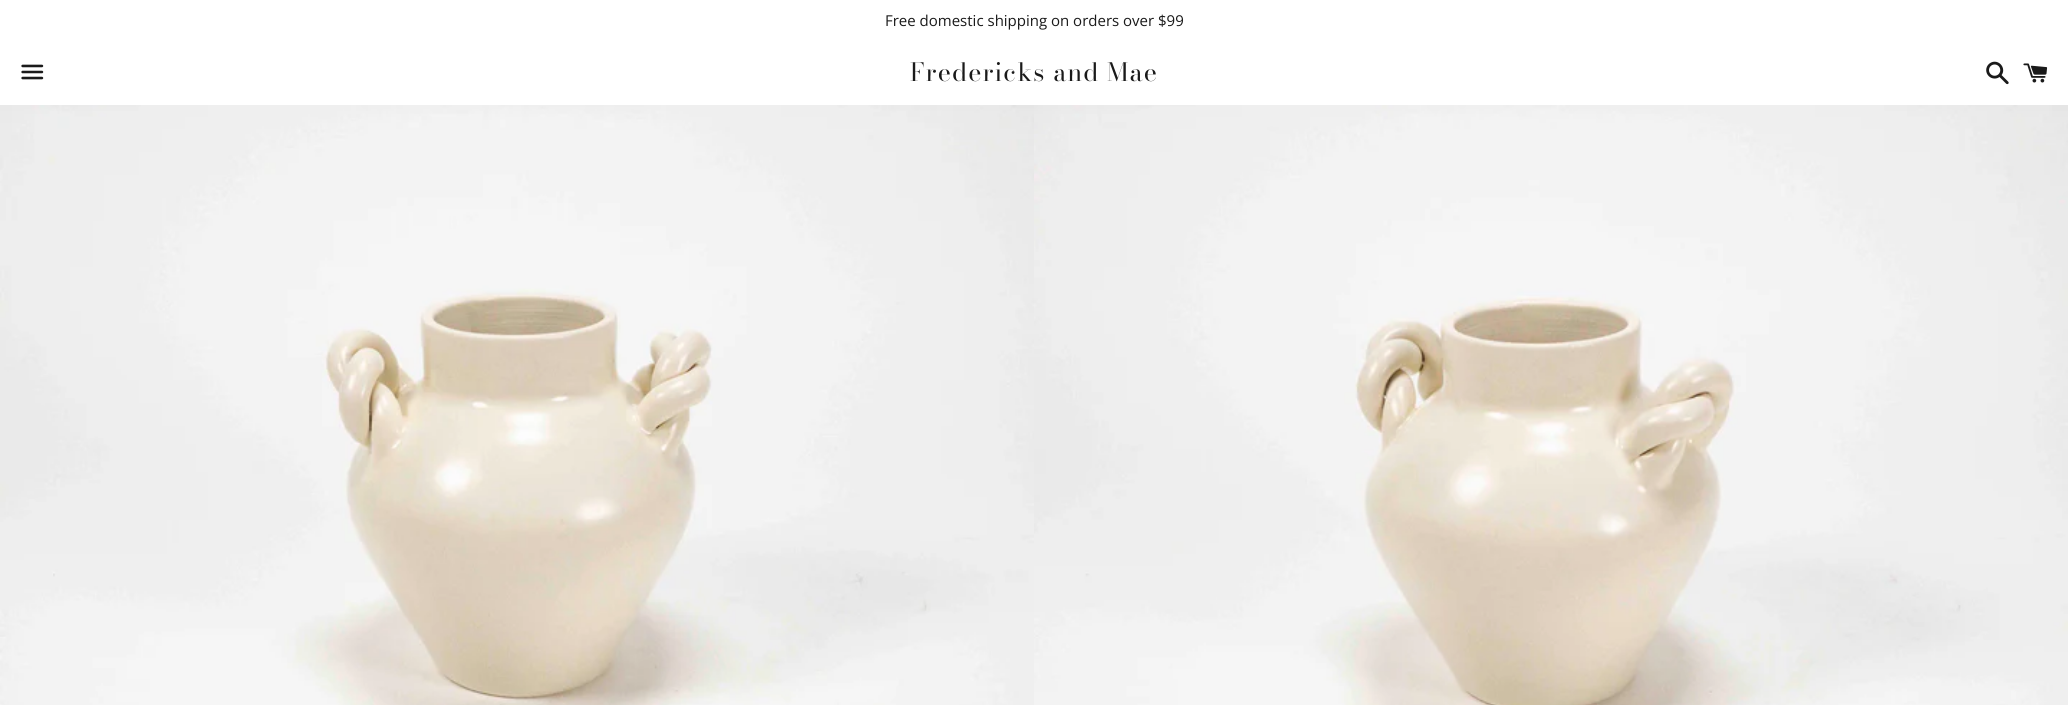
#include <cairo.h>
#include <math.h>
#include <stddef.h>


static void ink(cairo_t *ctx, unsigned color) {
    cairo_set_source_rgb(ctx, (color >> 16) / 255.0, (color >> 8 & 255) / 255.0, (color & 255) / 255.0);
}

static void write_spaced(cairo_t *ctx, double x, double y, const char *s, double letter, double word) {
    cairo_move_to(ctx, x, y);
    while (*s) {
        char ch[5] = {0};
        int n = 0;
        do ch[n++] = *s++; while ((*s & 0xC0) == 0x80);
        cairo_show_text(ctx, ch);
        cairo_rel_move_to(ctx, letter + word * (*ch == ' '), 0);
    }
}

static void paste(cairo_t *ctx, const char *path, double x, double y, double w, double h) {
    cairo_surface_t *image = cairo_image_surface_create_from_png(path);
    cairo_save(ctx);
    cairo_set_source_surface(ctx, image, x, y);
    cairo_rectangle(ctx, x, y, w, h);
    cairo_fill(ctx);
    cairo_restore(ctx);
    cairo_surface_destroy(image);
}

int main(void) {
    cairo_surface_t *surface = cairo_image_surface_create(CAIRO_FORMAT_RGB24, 2068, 705);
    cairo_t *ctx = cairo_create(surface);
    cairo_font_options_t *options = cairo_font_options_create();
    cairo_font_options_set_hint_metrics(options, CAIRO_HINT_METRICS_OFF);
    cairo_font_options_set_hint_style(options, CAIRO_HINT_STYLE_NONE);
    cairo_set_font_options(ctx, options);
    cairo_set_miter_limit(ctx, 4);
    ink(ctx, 0xFFFFFF);
    cairo_paint(ctx);
    cairo_select_font_face(ctx, "Open Sans", CAIRO_FONT_SLANT_NORMAL, CAIRO_FONT_WEIGHT_NORMAL);
    cairo_set_font_size(ctx, 15);
    ink(ctx, 0x1A1A1A);
    cairo_move_to(ctx, 885, 26);
    cairo_show_text(ctx, "Free domestic shipping on orders over $99");
    paste(ctx, "media/1.png", 21, 64, 23, 16);
    cairo_select_font_face(ctx, "Bodoni Moda", CAIRO_FONT_SLANT_NORMAL, CAIRO_FONT_WEIGHT_NORMAL);
    cairo_set_font_size(ctx, 25);
    write_spaced(ctx, 910, 81, "Fredericks and Mae", 1.25, 0);
    paste(ctx, "media/2.png", 1986, 61, 23, 24);
    paste(ctx, "media/3.png", 2023, 63, 25, 20);
    paste(ctx, "media/4.png", 0, 105, 1034, 600);
    paste(ctx, "media/5.png", 1034, 105, 1034, 600);
    cairo_surface_write_to_png(surface, "image.png");
    cairo_font_options_destroy(options);
    cairo_destroy(ctx);
    cairo_surface_destroy(surface);
    return 0;
}
